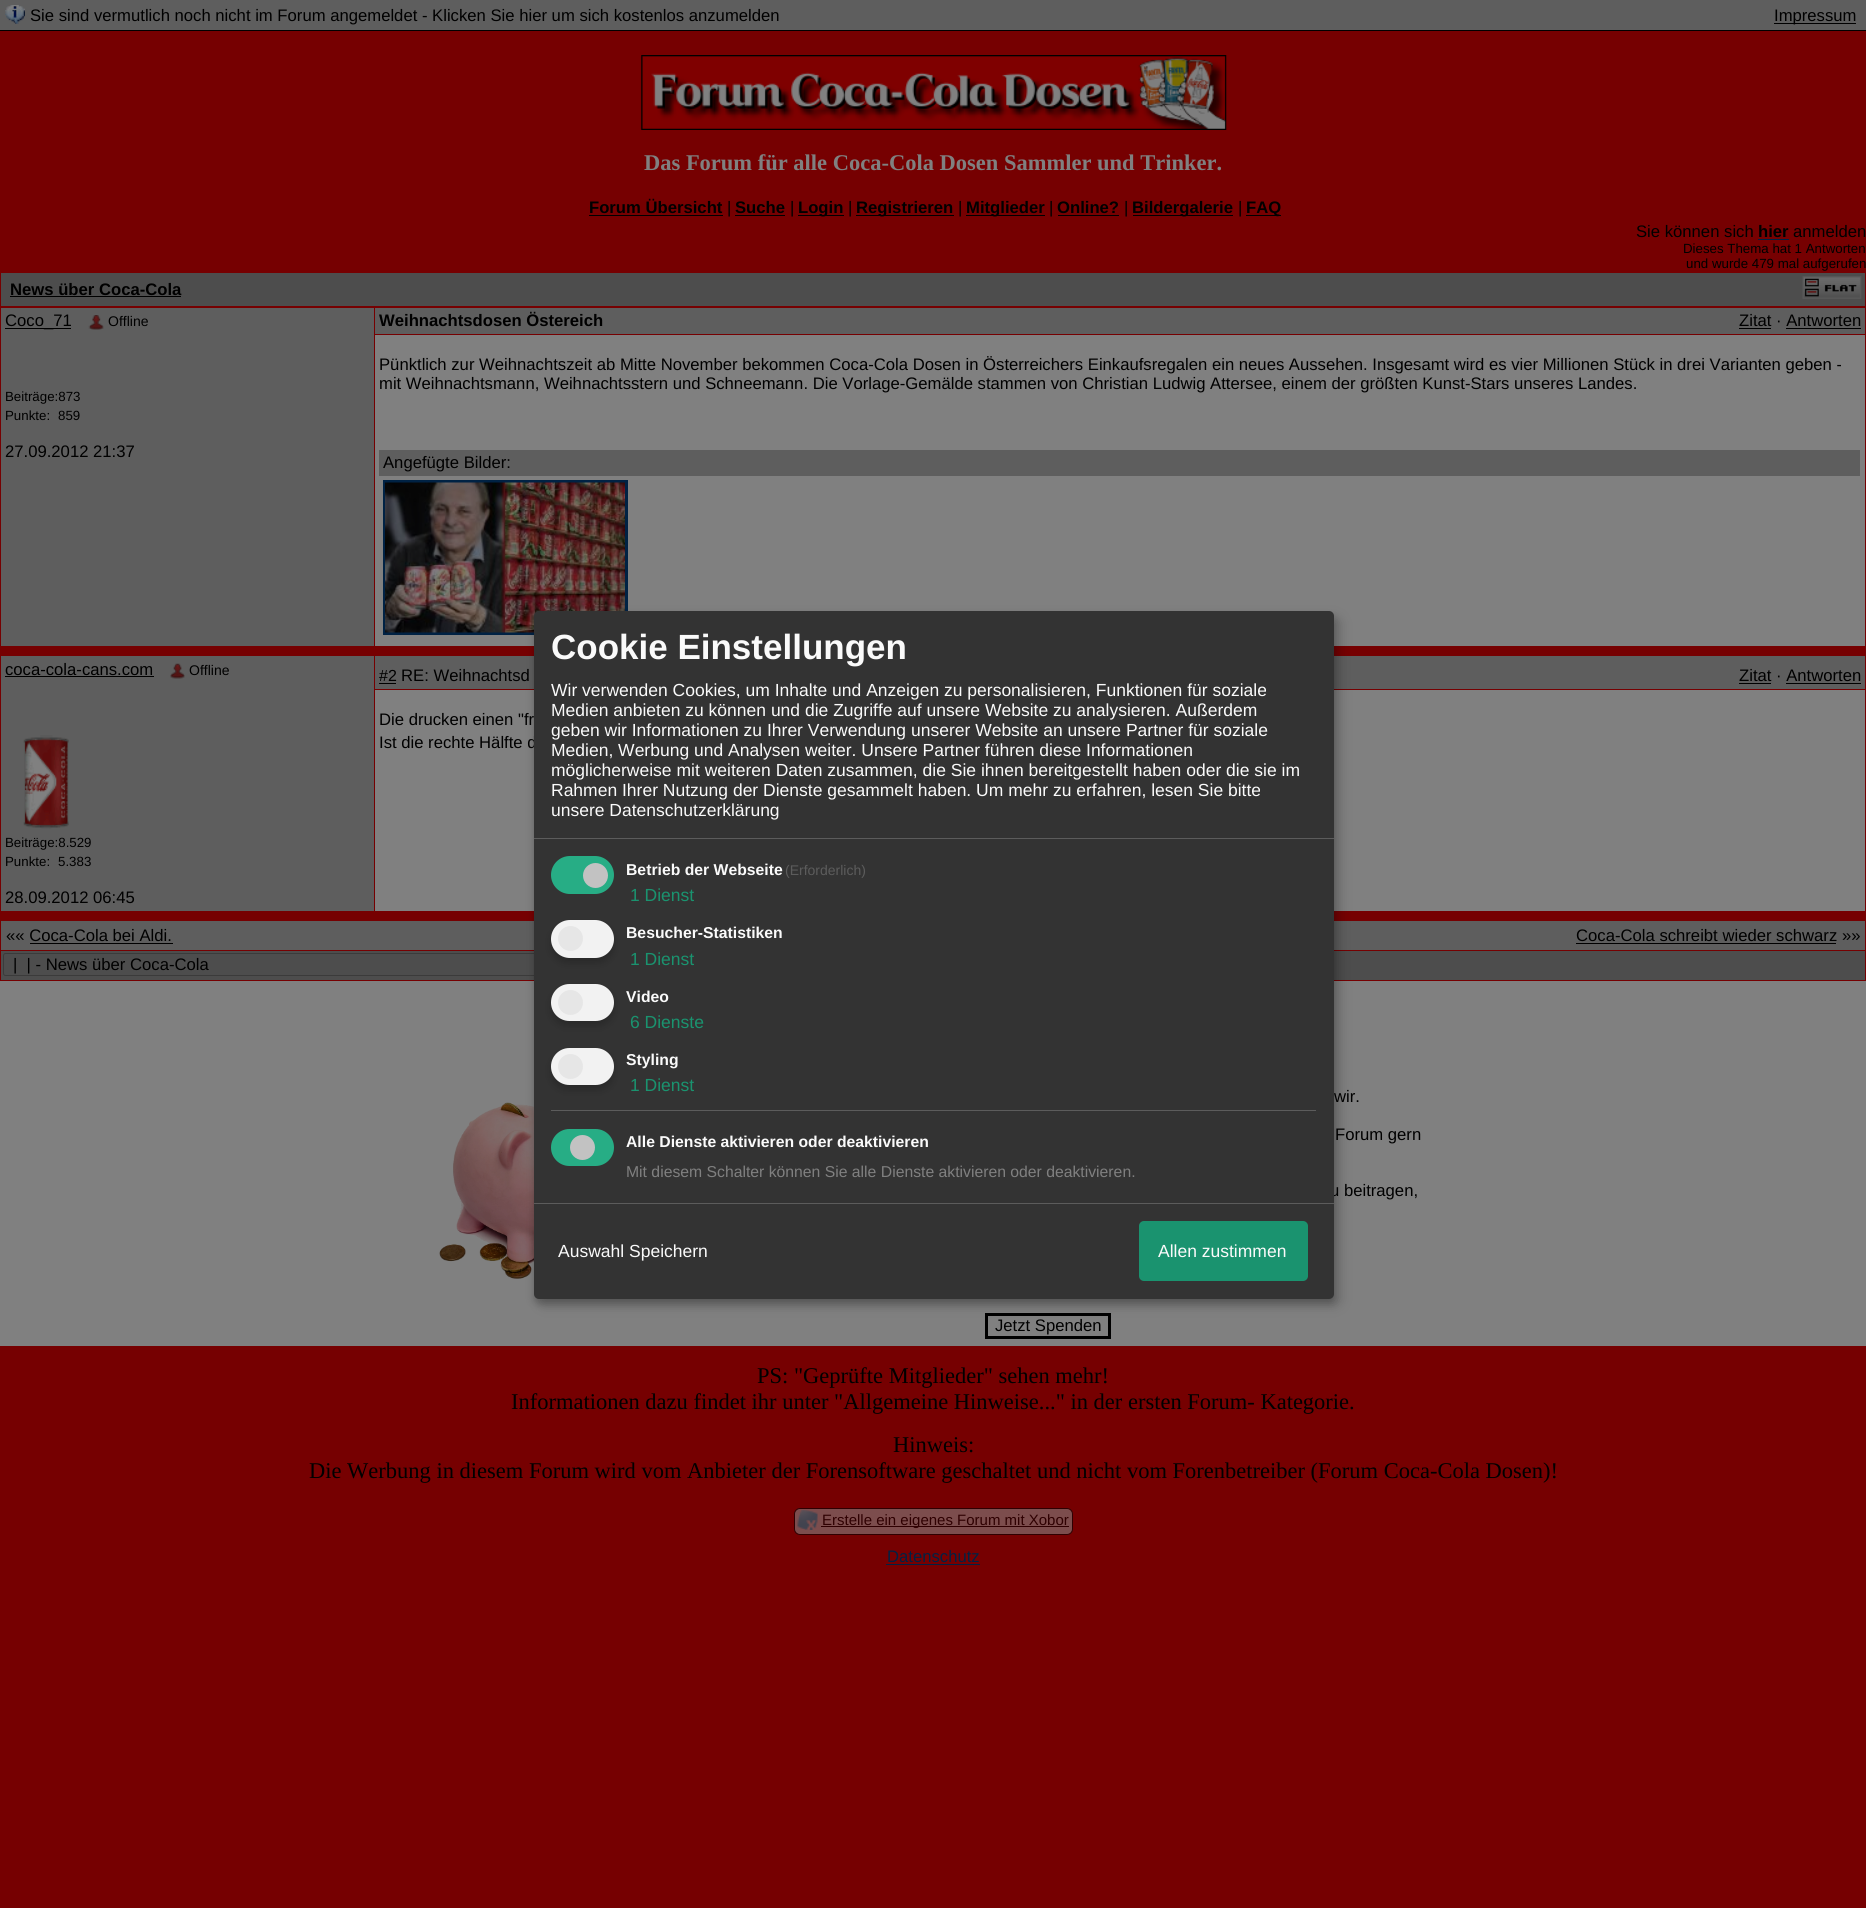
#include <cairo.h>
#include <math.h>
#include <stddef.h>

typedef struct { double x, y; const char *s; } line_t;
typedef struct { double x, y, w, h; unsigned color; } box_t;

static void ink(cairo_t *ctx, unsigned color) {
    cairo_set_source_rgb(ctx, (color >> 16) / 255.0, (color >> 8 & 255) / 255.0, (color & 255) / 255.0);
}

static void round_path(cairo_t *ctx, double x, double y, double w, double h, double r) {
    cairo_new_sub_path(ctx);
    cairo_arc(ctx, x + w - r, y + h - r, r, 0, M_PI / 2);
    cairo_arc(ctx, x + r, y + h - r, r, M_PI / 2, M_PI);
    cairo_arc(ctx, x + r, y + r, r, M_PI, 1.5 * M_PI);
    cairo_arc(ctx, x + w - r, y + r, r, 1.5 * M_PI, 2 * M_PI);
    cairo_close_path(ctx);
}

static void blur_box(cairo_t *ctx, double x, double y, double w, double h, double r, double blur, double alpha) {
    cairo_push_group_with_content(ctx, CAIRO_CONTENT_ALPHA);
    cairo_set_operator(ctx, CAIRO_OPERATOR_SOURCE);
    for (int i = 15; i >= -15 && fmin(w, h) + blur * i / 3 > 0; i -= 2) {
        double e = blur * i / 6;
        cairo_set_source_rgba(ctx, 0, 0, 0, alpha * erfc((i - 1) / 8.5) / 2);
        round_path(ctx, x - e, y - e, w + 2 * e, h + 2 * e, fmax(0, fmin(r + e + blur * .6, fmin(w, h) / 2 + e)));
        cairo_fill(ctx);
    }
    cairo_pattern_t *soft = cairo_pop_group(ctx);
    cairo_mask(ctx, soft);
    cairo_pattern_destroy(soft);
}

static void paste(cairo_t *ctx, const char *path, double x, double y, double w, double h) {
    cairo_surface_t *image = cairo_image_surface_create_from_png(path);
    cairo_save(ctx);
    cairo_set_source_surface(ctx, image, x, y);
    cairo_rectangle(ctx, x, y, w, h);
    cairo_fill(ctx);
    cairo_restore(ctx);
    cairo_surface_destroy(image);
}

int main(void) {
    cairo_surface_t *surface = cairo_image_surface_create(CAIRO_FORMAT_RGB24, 1866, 1908);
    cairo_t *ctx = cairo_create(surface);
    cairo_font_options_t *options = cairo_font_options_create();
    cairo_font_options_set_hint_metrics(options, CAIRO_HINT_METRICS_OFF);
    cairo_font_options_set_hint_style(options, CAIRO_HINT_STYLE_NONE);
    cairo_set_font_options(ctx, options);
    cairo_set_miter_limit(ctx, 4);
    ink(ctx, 0x760001);
    cairo_paint(ctx);
    ink(ctx, 0x5E5E5E);
    cairo_rectangle(ctx, 0, 0, 1866, 30);
    cairo_fill(ctx);
    ink(ctx, 0x000000);
    cairo_rectangle(ctx, 0, 30, 1866, 1);
    cairo_fill(ctx);
    paste(ctx, "media/1.png", 5, 5, 20, 19);
    cairo_select_font_face(ctx, "Liberation Sans", CAIRO_FONT_SLANT_NORMAL, CAIRO_FONT_WEIGHT_NORMAL);
    cairo_set_font_size(ctx, 16.67);
    cairo_move_to(ctx, 30, 21);
    cairo_show_text(ctx, "Sie sind vermutlich noch nicht im Forum angemeldet - Klicken Sie hier um sich kostenlos anzumelden");
    cairo_rectangle(ctx, 1774, 23, 82, 1);
    cairo_fill(ctx);
    cairo_move_to(ctx, 1774, 21);
    cairo_show_text(ctx, "Impressum");
    paste(ctx, "media/2.png", 641, 55, 586, 75);
    cairo_select_font_face(ctx, "Liberation Serif", CAIRO_FONT_SLANT_NORMAL, CAIRO_FONT_WEIGHT_BOLD);
    cairo_set_font_size(ctx, 22.5);
    ink(ctx, 0x808080);
    cairo_move_to(ctx, 644, 170);
    cairo_show_text(ctx, "Das Forum für alle Coca-Cola Dosen Sammler und Trinker.");
    cairo_select_font_face(ctx, "Liberation Sans", CAIRO_FONT_SLANT_NORMAL, CAIRO_FONT_WEIGHT_BOLD);
    cairo_set_font_size(ctx, 16.67);
    ink(ctx, 0x000000);
    cairo_move_to(ctx, 589, 213);
    cairo_show_text(ctx, "Forum Übersicht");
    cairo_rectangle(ctx, 589, 215, 134, 1);
    cairo_fill(ctx);
    cairo_select_font_face(ctx, "Liberation Sans", CAIRO_FONT_SLANT_NORMAL, CAIRO_FONT_WEIGHT_NORMAL);
    cairo_move_to(ctx, 727, 213);
    cairo_show_text(ctx, "|");
    cairo_select_font_face(ctx, "Liberation Sans", CAIRO_FONT_SLANT_NORMAL, CAIRO_FONT_WEIGHT_BOLD);
    cairo_move_to(ctx, 735, 213);
    cairo_show_text(ctx, "Suche");
    cairo_rectangle(ctx, 735, 215, 50, 1);
    cairo_fill(ctx);
    cairo_select_font_face(ctx, "Liberation Sans", CAIRO_FONT_SLANT_NORMAL, CAIRO_FONT_WEIGHT_NORMAL);
    cairo_move_to(ctx, 790, 213);
    cairo_show_text(ctx, "|");
    cairo_rectangle(ctx, 798, 215, 46, 1);
    cairo_fill(ctx);
    cairo_select_font_face(ctx, "Liberation Sans", CAIRO_FONT_SLANT_NORMAL, CAIRO_FONT_WEIGHT_BOLD);
    cairo_move_to(ctx, 798, 213);
    cairo_show_text(ctx, "Login");
    cairo_select_font_face(ctx, "Liberation Sans", CAIRO_FONT_SLANT_NORMAL, CAIRO_FONT_WEIGHT_NORMAL);
    cairo_move_to(ctx, 848, 213);
    cairo_show_text(ctx, "|");
    cairo_rectangle(ctx, 856, 215, 98, 1);
    cairo_fill(ctx);
    cairo_select_font_face(ctx, "Liberation Sans", CAIRO_FONT_SLANT_NORMAL, CAIRO_FONT_WEIGHT_BOLD);
    cairo_move_to(ctx, 856, 213);
    cairo_show_text(ctx, "Registrieren");
    cairo_select_font_face(ctx, "Liberation Sans", CAIRO_FONT_SLANT_NORMAL, CAIRO_FONT_WEIGHT_NORMAL);
    cairo_move_to(ctx, 958, 213);
    cairo_show_text(ctx, "|");
    cairo_rectangle(ctx, 966, 215, 79, 1);
    cairo_fill(ctx);
    cairo_select_font_face(ctx, "Liberation Sans", CAIRO_FONT_SLANT_NORMAL, CAIRO_FONT_WEIGHT_BOLD);
    cairo_move_to(ctx, 966, 213);
    cairo_show_text(ctx, "Mitglieder");
    cairo_select_font_face(ctx, "Liberation Sans", CAIRO_FONT_SLANT_NORMAL, CAIRO_FONT_WEIGHT_NORMAL);
    cairo_move_to(ctx, 1049, 213);
    cairo_show_text(ctx, "|");
    cairo_select_font_face(ctx, "Liberation Sans", CAIRO_FONT_SLANT_NORMAL, CAIRO_FONT_WEIGHT_BOLD);
    cairo_move_to(ctx, 1057, 213);
    cairo_show_text(ctx, "Online?");
    cairo_rectangle(ctx, 1058, 215, 61, 1);
    cairo_fill(ctx);
    cairo_select_font_face(ctx, "Liberation Sans", CAIRO_FONT_SLANT_NORMAL, CAIRO_FONT_WEIGHT_NORMAL);
    cairo_move_to(ctx, 1124, 213);
    cairo_show_text(ctx, "|");
    cairo_rectangle(ctx, 1133, 215, 100, 1);
    cairo_fill(ctx);
    cairo_select_font_face(ctx, "Liberation Sans", CAIRO_FONT_SLANT_NORMAL, CAIRO_FONT_WEIGHT_BOLD);
    cairo_move_to(ctx, 1132, 213);
    cairo_show_text(ctx, "Bildergalerie");
    cairo_select_font_face(ctx, "Liberation Sans", CAIRO_FONT_SLANT_NORMAL, CAIRO_FONT_WEIGHT_NORMAL);
    cairo_move_to(ctx, 1238, 213);
    cairo_show_text(ctx, "|");
    cairo_rectangle(ctx, 1246, 215, 35, 1);
    cairo_fill(ctx);
    cairo_select_font_face(ctx, "Liberation Sans", CAIRO_FONT_SLANT_NORMAL, CAIRO_FONT_WEIGHT_BOLD);
    cairo_move_to(ctx, 1246, 213);
    cairo_show_text(ctx, "FAQ");
    cairo_select_font_face(ctx, "Liberation Sans", CAIRO_FONT_SLANT_NORMAL, CAIRO_FONT_WEIGHT_NORMAL);
    cairo_move_to(ctx, 1636, 237);
    cairo_show_text(ctx, "Sie können sich");
    cairo_select_font_face(ctx, "Liberation Sans", CAIRO_FONT_SLANT_NORMAL, CAIRO_FONT_WEIGHT_BOLD);
    cairo_move_to(ctx, 1758, 237);
    cairo_show_text(ctx, "hier");
    ink(ctx, 0x002244);
    cairo_rectangle(ctx, 1758, 239, 31, 1);
    cairo_fill(ctx);
    cairo_select_font_face(ctx, "Liberation Sans", CAIRO_FONT_SLANT_NORMAL, CAIRO_FONT_WEIGHT_NORMAL);
    ink(ctx, 0x000000);
    cairo_move_to(ctx, 1793, 237);
    cairo_show_text(ctx, "anmelden");
    cairo_set_font_size(ctx, 13.3);
    cairo_move_to(ctx, 1683, 253);
    cairo_show_text(ctx, "Dieses Thema hat 1 Antworten");
    cairo_move_to(ctx, 1686, 268);
    cairo_show_text(ctx, "und wurde 479 mal aufgerufen");
    ink(ctx, 0x4D4D4D);
    cairo_rectangle(ctx, 1, 273, 1864, 33);
    cairo_fill(ctx);
    cairo_select_font_face(ctx, "Liberation Sans", CAIRO_FONT_SLANT_NORMAL, CAIRO_FONT_WEIGHT_BOLD);
    cairo_set_font_size(ctx, 16.67);
    ink(ctx, 0x000000);
    cairo_move_to(ctx, 10, 295);
    cairo_show_text(ctx, "News über Coca-Cola");
    cairo_rectangle(ctx, 10, 296, 171, 1);
    cairo_fill(ctx);
    paste(ctx, "media/3.png", 1802, 276, 60, 23);
    ink(ctx, 0x5E5E5E);
    cairo_rectangle(ctx, 1, 308, 373, 338);
    cairo_fill(ctx);
    ink(ctx, 0x000000);
    cairo_rectangle(ctx, 5, 328, 66, 1);
    cairo_fill(ctx);
    cairo_select_font_face(ctx, "Liberation Sans", CAIRO_FONT_SLANT_NORMAL, CAIRO_FONT_WEIGHT_NORMAL);
    cairo_move_to(ctx, 5, 326);
    cairo_show_text(ctx, "Coco_71");
    paste(ctx, "media/4.png", 88, 315, 16, 15);
    cairo_set_font_size(ctx, 14);
    cairo_move_to(ctx, 108, 326);
    cairo_show_text(ctx, "Offline");
    cairo_set_font_size(ctx, 13.3);
    {
        static const line_t items[] = {
            {5, 401, "Beiträge:873"},
            {5, 420, "Punkte:"},
            {58, 420, "859"},
        };
        for (size_t i = 0; i < sizeof items / sizeof *items; i++) {
            cairo_move_to(ctx, items[i].x, items[i].y);
            cairo_show_text(ctx, items[i].s);
        }
    }
    cairo_set_font_size(ctx, 16.67);
    cairo_move_to(ctx, 5, 457);
    cairo_show_text(ctx, "27.09.2012 21:37");
    ink(ctx, 0x5E5E5E);
    cairo_rectangle(ctx, 375, 308, 1490, 26);
    cairo_fill(ctx);
    cairo_select_font_face(ctx, "Liberation Sans", CAIRO_FONT_SLANT_NORMAL, CAIRO_FONT_WEIGHT_BOLD);
    ink(ctx, 0x000000);
    cairo_move_to(ctx, 379, 326);
    cairo_show_text(ctx, "Weihnachtsdosen Östereich");
    cairo_select_font_face(ctx, "Liberation Sans", CAIRO_FONT_SLANT_NORMAL, CAIRO_FONT_WEIGHT_NORMAL);
    cairo_move_to(ctx, 1739, 326);
    cairo_show_text(ctx, "Zitat · Antworten");
    {
        static const box_t items[] = {
            {1739, 328, 32, 1, 0x000000},
            {1786, 328, 75, 1, 0x000000},
            {375, 335, 1490, 311, 0x808080},
        };
        for (size_t i = 0; i < sizeof items / sizeof *items; i++) {
            ink(ctx, items[i].color);
            cairo_rectangle(ctx, items[i].x, items[i].y, items[i].w, items[i].h);
            cairo_fill(ctx);
        }
    }
    ink(ctx, 0x000000);
    cairo_move_to(ctx, 379, 370);
    cairo_show_text(ctx, "Pünktlich zur Weihnachtszeit ab Mitte November bekommen Coca-Cola Dosen in Österreichers Einkaufsregalen ein neues Aussehen. Insgesamt wird es vier Millionen Stück in drei Varianten geben -");
    cairo_move_to(ctx, 379, 389);
    cairo_show_text(ctx, "mit Weihnachtsmann, Weihnachtsstern und Schneemann. Die Vorlage-Gemälde stammen von Christian Ludwig Attersee, einem der größten Kunst-Stars unseres Landes.");
    ink(ctx, 0x5E5E5E);
    cairo_rectangle(ctx, 379, 450, 1481, 26);
    cairo_fill(ctx);
    ink(ctx, 0x000000);
    cairo_move_to(ctx, 383, 468);
    cairo_show_text(ctx, "Angefügte Bilder:");
    cairo_rectangle(ctx, 384.5, 481.5, 242, 152);
    ink(ctx, 0x002244);
    cairo_set_line_width(ctx, 3);
    cairo_stroke(ctx);
    paste(ctx, "media/5.png", 385, 482, 240, 151);
    ink(ctx, 0x5E5E5E);
    cairo_rectangle(ctx, 1, 656, 373, 255);
    cairo_fill(ctx);
    ink(ctx, 0x000000);
    cairo_move_to(ctx, 5, 675);
    cairo_show_text(ctx, "coca-cola-cans.com");
    cairo_rectangle(ctx, 5, 676, 149, 1);
    cairo_fill(ctx);
    paste(ctx, "media/6.png", 170, 663, 15, 16);
    cairo_set_font_size(ctx, 14);
    cairo_move_to(ctx, 189, 675);
    cairo_show_text(ctx, "Offline");
    paste(ctx, "media/7.png", 23, 735, 46, 94);
    cairo_set_font_size(ctx, 13.3);
    {
        static const line_t items[] = {
            {5, 847, "Beiträge:8.529"},
            {5, 866, "Punkte:"},
            {58, 866, "5.383"},
        };
        for (size_t i = 0; i < sizeof items / sizeof *items; i++) {
            cairo_move_to(ctx, items[i].x, items[i].y);
            cairo_show_text(ctx, items[i].s);
        }
    }
    cairo_set_font_size(ctx, 16.67);
    cairo_move_to(ctx, 5, 903);
    cairo_show_text(ctx, "28.09.2012 06:45");
    ink(ctx, 0x5E5E5E);
    cairo_rectangle(ctx, 375, 656, 1490, 33);
    cairo_fill(ctx);
    cairo_set_font_size(ctx, 16);
    ink(ctx, 0x000000);
    cairo_move_to(ctx, 379, 681);
    cairo_show_text(ctx, "#2");
    cairo_rectangle(ctx, 379, 683, 17, 1);
    cairo_fill(ctx);
    cairo_set_font_size(ctx, 16.67);
    cairo_move_to(ctx, 401, 681);
    cairo_show_text(ctx, "RE: Weihnachtsd");
    cairo_move_to(ctx, 1739, 681);
    cairo_show_text(ctx, "Zitat · Antworten");
    {
        static const box_t items[] = {
            {1739, 683, 32, 1, 0x000000},
            {1786, 683, 75, 1, 0x000000},
            {375, 690, 1490, 221, 0x808080},
        };
        for (size_t i = 0; i < sizeof items / sizeof *items; i++) {
            ink(ctx, items[i].color);
            cairo_rectangle(ctx, items[i].x, items[i].y, items[i].w, items[i].h);
            cairo_fill(ctx);
        }
    }
    ink(ctx, 0x000000);
    cairo_move_to(ctx, 379, 725);
    cairo_show_text(ctx, "Die drucken einen \"fr");
    cairo_move_to(ctx, 379, 748);
    cairo_show_text(ctx, "Ist die rechte Hälfte d");
    ink(ctx, 0x5E5E5E);
    cairo_rectangle(ctx, 1, 921, 1864, 29);
    cairo_fill(ctx);
    ink(ctx, 0x000000);
    cairo_move_to(ctx, 6, 941);
    cairo_show_text(ctx, "«« Coca-Cola bei Aldi.");
    cairo_rectangle(ctx, 30, 943, 143, 1);
    cairo_fill(ctx);
    cairo_move_to(ctx, 1576, 941);
    cairo_show_text(ctx, "Coca-Cola schreibt wieder schwarz »»");
    cairo_rectangle(ctx, 1576, 943, 260, 1);
    cairo_fill(ctx);
    ink(ctx, 0x4D4D4D);
    cairo_rectangle(ctx, 1, 951, 1864, 29);
    cairo_fill(ctx);
    round_path(ctx, 3.5, 953.5, 649, 22, 2);
    ink(ctx, 0x3B3B3B);
    cairo_set_line_width(ctx, 1);
    cairo_stroke(ctx);
    ink(ctx, 0x000000);
    cairo_move_to(ctx, 13, 970);
    cairo_show_text(ctx, "|  | - News über Coca-Cola");
    ink(ctx, 0x808080);
    cairo_rectangle(ctx, 0, 981, 1866, 365);
    cairo_fill(ctx);
    paste(ctx, "media/8.png", 439, 1102, 95, 177);
    ink(ctx, 0x000000);
    {
        static const line_t items[] = {
            {1334, 1102, "wir."},
            {1335, 1140, "Forum gern"},
            {1330, 1196, "u beitragen,"},
        };
        for (size_t i = 0; i < sizeof items / sizeof *items; i++) {
            cairo_move_to(ctx, items[i].x, items[i].y);
            cairo_show_text(ctx, items[i].s);
        }
    }
    cairo_rectangle(ctx, 986.5, 1314.5, 123, 23);
    cairo_set_line_width(ctx, 3);
    cairo_stroke(ctx);
    cairo_move_to(ctx, 995, 1331);
    cairo_show_text(ctx, "Jetzt Spenden");
    cairo_select_font_face(ctx, "Liberation Serif", CAIRO_FONT_SLANT_NORMAL, CAIRO_FONT_WEIGHT_NORMAL);
    cairo_set_font_size(ctx, 22.5);
    {
        static const line_t items[] = {
            {757, 1383, "PS: \"Geprüfte Mitglieder\" sehen mehr!"},
            {511, 1409, "Informationen dazu findet ihr unter \"Allgemeine Hinweise...\" in der ersten Forum- Kategorie."},
            {893, 1452, "Hinweis:"},
            {309, 1478, "Die Werbung in diesem Forum wird vom Anbieter der Forensoftware geschaltet und nicht vom Forenbetreiber (Forum Coca-Cola Dosen)!"},
        };
        for (size_t i = 0; i < sizeof items / sizeof *items; i++) {
            cairo_move_to(ctx, items[i].x, items[i].y);
            cairo_show_text(ctx, items[i].s);
        }
    }
    ink(ctx, 0x000000);
    blur_box(ctx, 540, 618, 800, 687, 5, 6, 0.19);
    blur_box(ctx, 534, 616, 800, 688, 5, 4, 0.2);
    ink(ctx, 0x333333);
    round_path(ctx, 534, 611, 800, 688, 5);
    cairo_fill(ctx);
    ink(ctx, 0x5C5C5C);
    cairo_rectangle(ctx, 534, 838, 800, 1);
    cairo_fill(ctx);
    cairo_select_font_face(ctx, "Liberation Sans", CAIRO_FONT_SLANT_NORMAL, CAIRO_FONT_WEIGHT_BOLD);
    cairo_set_font_size(ctx, 35);
    ink(ctx, 0xFAFAFA);
    cairo_move_to(ctx, 551, 659);
    cairo_show_text(ctx, "Cookie Einstellungen");
    cairo_select_font_face(ctx, "Liberation Sans", CAIRO_FONT_SLANT_NORMAL, CAIRO_FONT_WEIGHT_NORMAL);
    cairo_set_font_size(ctx, 17.5);
    {
        static const line_t items[] = {
            {551, 696, "Wir verwenden Cookies, um Inhalte und Anzeigen zu personalisieren, Funktionen für soziale"},
            {551, 716, "Medien anbieten zu können und die Zugriffe auf unsere Website zu analysieren. Außerdem"},
            {551, 736, "geben wir Informationen zu Ihrer Verwendung unserer Website an unsere Partner für soziale"},
            {551, 756, "Medien, Werbung und Analysen weiter. Unsere Partner führen diese Informationen"},
            {551, 776, "möglicherweise mit weiteren Daten zusammen, die Sie ihnen bereitgestellt haben oder die sie im"},
            {551, 796, "Rahmen Ihrer Nutzung der Dienste gesammelt haben. Um mehr zu erfahren, lesen Sie bitte"},
            {551, 816, "unsere Datenschutzerklärung"},
        };
        for (size_t i = 0; i < sizeof items / sizeof *items; i++) {
            cairo_move_to(ctx, items[i].x, items[i].y);
            cairo_show_text(ctx, items[i].s);
        }
    }
    ink(ctx, 0x27AD85);
    round_path(ctx, 551, 856, 63, 38, 19);
    cairo_fill(ctx);
    ink(ctx, 0xC2C2C2);
    cairo_arc(ctx, 595.5, 875.5, 12.5, 0, 2 * M_PI);
    cairo_fill(ctx);
    cairo_select_font_face(ctx, "Liberation Sans", CAIRO_FONT_SLANT_NORMAL, CAIRO_FONT_WEIGHT_BOLD);
    cairo_set_font_size(ctx, 15.75);
    ink(ctx, 0xFAFAFA);
    cairo_move_to(ctx, 626, 875);
    cairo_show_text(ctx, "Betrieb der Webseite");
    cairo_select_font_face(ctx, "Liberation Sans", CAIRO_FONT_SLANT_NORMAL, CAIRO_FONT_WEIGHT_NORMAL);
    cairo_set_font_size(ctx, 14);
    ink(ctx, 0x5C5C5C);
    cairo_move_to(ctx, 785, 875);
    cairo_show_text(ctx, "(Erforderlich)");
    cairo_set_font_size(ctx, 17.5);
    ink(ctx, 0x1A936F);
    cairo_move_to(ctx, 630, 901);
    cairo_show_text(ctx, "1 Dienst");
    ink(ctx, 0x000000);
    blur_box(ctx, 551, 925, 63, 38, 19, 4, 0.2);
    ink(ctx, 0xF2F2F2);
    round_path(ctx, 551, 920, 63, 38, 19);
    cairo_fill(ctx);
    ink(ctx, 0xE6E6E6);
    cairo_arc(ctx, 570.5, 938.5, 12.5, 0, 2 * M_PI);
    cairo_fill(ctx);
    cairo_select_font_face(ctx, "Liberation Sans", CAIRO_FONT_SLANT_NORMAL, CAIRO_FONT_WEIGHT_BOLD);
    cairo_set_font_size(ctx, 15.75);
    ink(ctx, 0xFAFAFA);
    cairo_move_to(ctx, 626, 938);
    cairo_show_text(ctx, "Besucher-Statistiken");
    cairo_select_font_face(ctx, "Liberation Sans", CAIRO_FONT_SLANT_NORMAL, CAIRO_FONT_WEIGHT_NORMAL);
    cairo_set_font_size(ctx, 17.5);
    ink(ctx, 0x1A936F);
    cairo_move_to(ctx, 630, 965);
    cairo_show_text(ctx, "1 Dienst");
    ink(ctx, 0x000000);
    blur_box(ctx, 551, 989, 63, 37, 18.5, 4, 0.2);
    ink(ctx, 0xF2F2F2);
    round_path(ctx, 551, 984, 63, 37, 18.5);
    cairo_fill(ctx);
    ink(ctx, 0xE6E6E6);
    cairo_arc(ctx, 570.5, 1002.5, 12.5, 0, 2 * M_PI);
    cairo_fill(ctx);
    cairo_select_font_face(ctx, "Liberation Sans", CAIRO_FONT_SLANT_NORMAL, CAIRO_FONT_WEIGHT_BOLD);
    cairo_set_font_size(ctx, 15.75);
    ink(ctx, 0xFAFAFA);
    cairo_move_to(ctx, 626, 1002);
    cairo_show_text(ctx, "Video");
    cairo_select_font_face(ctx, "Liberation Sans", CAIRO_FONT_SLANT_NORMAL, CAIRO_FONT_WEIGHT_NORMAL);
    cairo_set_font_size(ctx, 17.5);
    ink(ctx, 0x1A936F);
    cairo_move_to(ctx, 630, 1028);
    cairo_show_text(ctx, "6 Dienste");
    ink(ctx, 0x000000);
    blur_box(ctx, 551, 1053, 63, 37, 18.5, 4, 0.2);
    ink(ctx, 0xF2F2F2);
    round_path(ctx, 551, 1048, 63, 37, 18.5);
    cairo_fill(ctx);
    ink(ctx, 0xE6E6E6);
    cairo_arc(ctx, 570.5, 1066.5, 12.5, 0, 2 * M_PI);
    cairo_fill(ctx);
    cairo_select_font_face(ctx, "Liberation Sans", CAIRO_FONT_SLANT_NORMAL, CAIRO_FONT_WEIGHT_BOLD);
    cairo_set_font_size(ctx, 15.75);
    ink(ctx, 0xFAFAFA);
    cairo_move_to(ctx, 626, 1065);
    cairo_show_text(ctx, "Styling");
    cairo_select_font_face(ctx, "Liberation Sans", CAIRO_FONT_SLANT_NORMAL, CAIRO_FONT_WEIGHT_NORMAL);
    cairo_set_font_size(ctx, 17.5);
    ink(ctx, 0x1A936F);
    cairo_move_to(ctx, 630, 1091);
    cairo_show_text(ctx, "1 Dienst");
    ink(ctx, 0x5C5C5C);
    cairo_rectangle(ctx, 551, 1110, 765, 1);
    cairo_fill(ctx);
    ink(ctx, 0x27AD85);
    round_path(ctx, 551, 1129, 63, 37, 18.5);
    cairo_fill(ctx);
    ink(ctx, 0xC2C2C2);
    cairo_arc(ctx, 582.5, 1147.5, 12.5, 0, 2 * M_PI);
    cairo_fill(ctx);
    cairo_select_font_face(ctx, "Liberation Sans", CAIRO_FONT_SLANT_NORMAL, CAIRO_FONT_WEIGHT_BOLD);
    cairo_set_font_size(ctx, 15.75);
    ink(ctx, 0xFAFAFA);
    cairo_move_to(ctx, 626, 1147);
    cairo_show_text(ctx, "Alle Dienste aktivieren oder deaktivieren");
    cairo_select_font_face(ctx, "Liberation Sans", CAIRO_FONT_SLANT_NORMAL, CAIRO_FONT_WEIGHT_NORMAL);
    ink(ctx, 0x808080);
    cairo_move_to(ctx, 626, 1177);
    cairo_show_text(ctx, "Mit diesem Schalter können Sie alle Dienste aktivieren oder deaktivieren.");
    ink(ctx, 0x5C5C5C);
    cairo_rectangle(ctx, 534, 1203, 800, 1);
    cairo_fill(ctx);
    cairo_set_font_size(ctx, 17.5);
    ink(ctx, 0xFAFAFA);
    cairo_move_to(ctx, 558, 1257);
    cairo_show_text(ctx, "Auswahl Speichern");
    ink(ctx, 0x1A936F);
    round_path(ctx, 1139, 1221, 169, 60, 5);
    cairo_fill(ctx);
    ink(ctx, 0xFAFAFA);
    cairo_move_to(ctx, 1158, 1257);
    cairo_show_text(ctx, "Allen zustimmen");
    ink(ctx, 0x7C4D4D);
    round_path(ctx, 794.5, 1508.5, 278, 26, 5.5);
    cairo_fill_preserve(ctx);
    ink(ctx, 0x2F0001);
    cairo_set_line_width(ctx, 1);
    cairo_stroke(ctx);
    paste(ctx, "media/9.png", 797, 1510, 21, 20);
    cairo_rectangle(ctx, 821, 1526, 248, 1);
    cairo_fill(ctx);
    cairo_set_font_size(ctx, 15);
    cairo_move_to(ctx, 822, 1525);
    cairo_show_text(ctx, "Erstelle ein eigenes Forum mit Xobor");
    cairo_set_font_size(ctx, 16.67);
    ink(ctx, 0x002244);
    cairo_move_to(ctx, 887, 1562);
    cairo_show_text(ctx, "Datenschutz");
    cairo_rectangle(ctx, 886, 1564, 94, 1);
    cairo_fill(ctx);
    cairo_surface_write_to_png(surface, "image.png");
    cairo_font_options_destroy(options);
    cairo_destroy(ctx);
    cairo_surface_destroy(surface);
    return 0;
}
